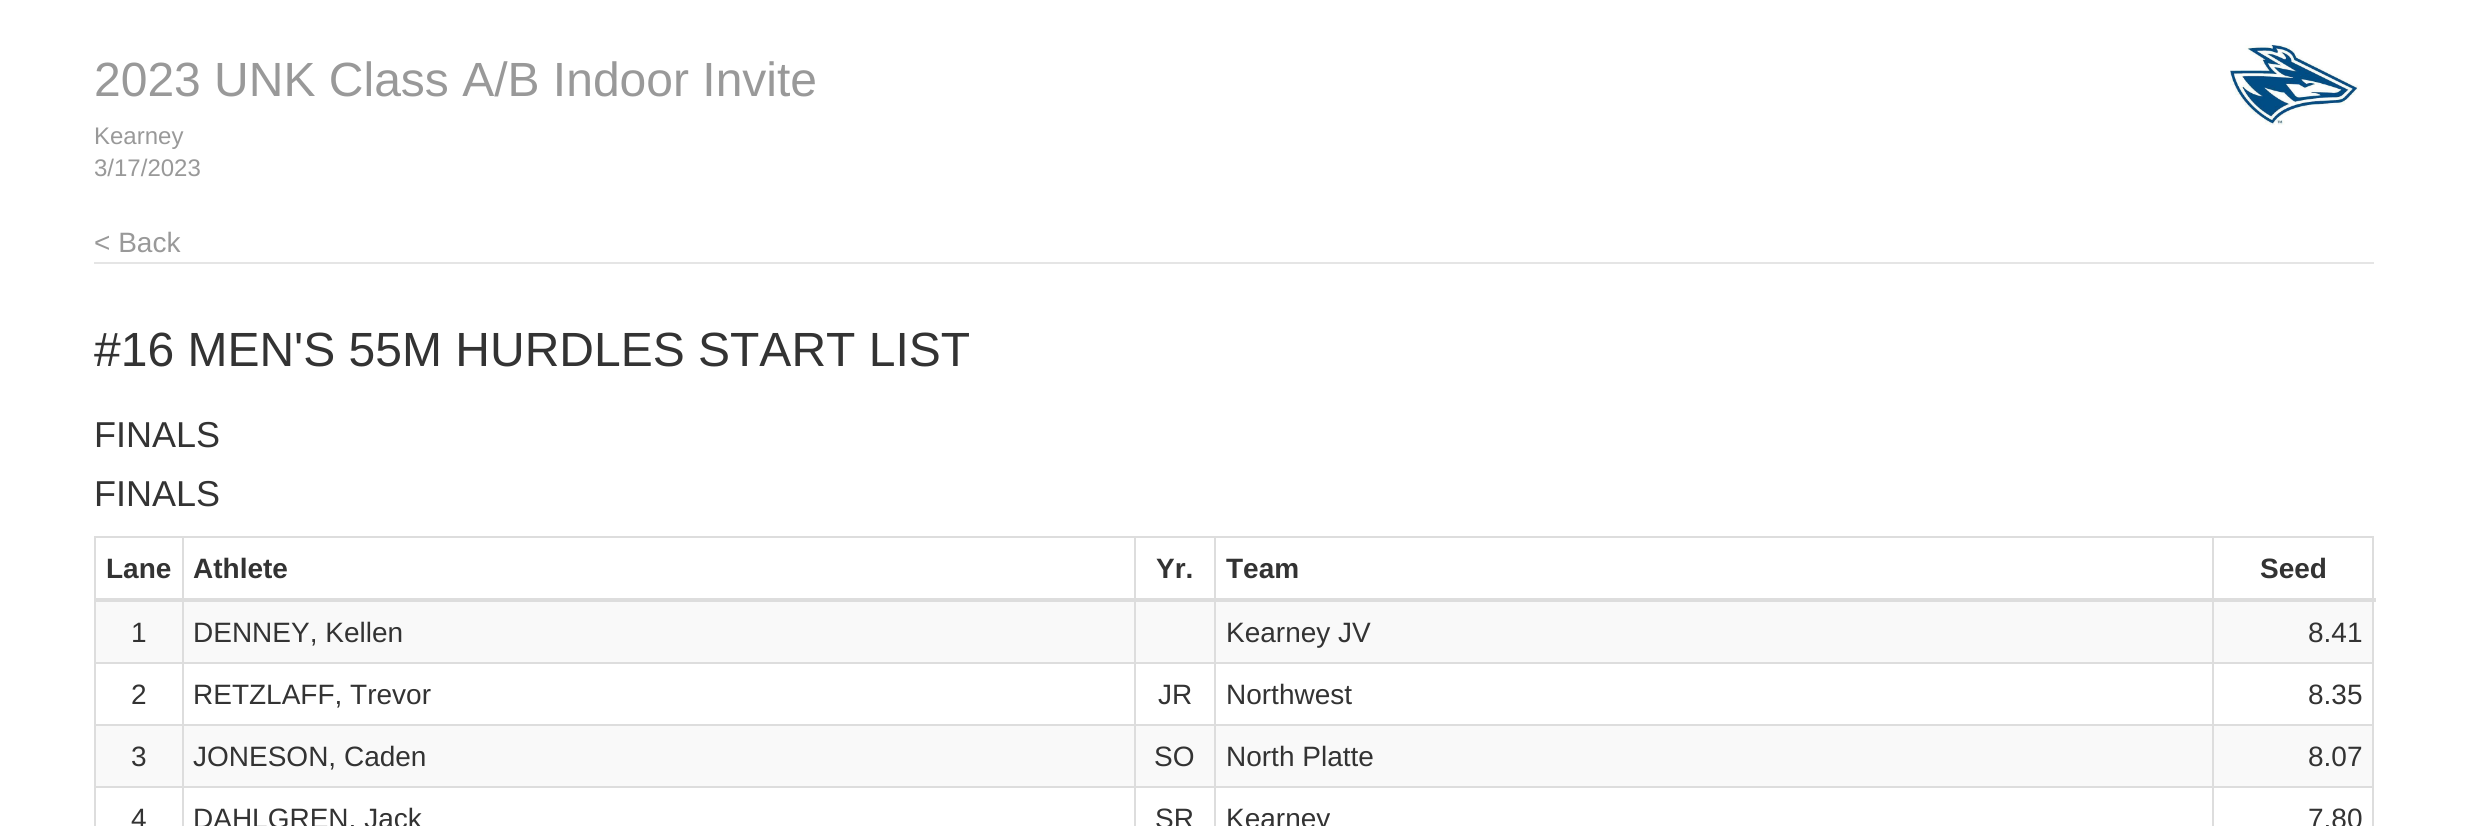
#include <cairo.h>
#include <math.h>
#include <stddef.h>

typedef struct { double x, y; const char *s; } line_t;
typedef struct { double x, y, w, h; unsigned color; } box_t;

static void ink(cairo_t *ctx, unsigned color) {
    cairo_set_source_rgb(ctx, (color >> 16) / 255.0, (color >> 8 & 255) / 255.0, (color & 255) / 255.0);
}

static void paste(cairo_t *ctx, const char *path, double x, double y, double w, double h) {
    cairo_surface_t *image = cairo_image_surface_create_from_png(path);
    cairo_save(ctx);
    cairo_set_source_surface(ctx, image, x, y);
    cairo_rectangle(ctx, x, y, w, h);
    cairo_fill(ctx);
    cairo_restore(ctx);
    cairo_surface_destroy(image);
}

int main(void) {
    cairo_surface_t *surface = cairo_image_surface_create(CAIRO_FORMAT_RGB24, 2468, 826);
    cairo_t *ctx = cairo_create(surface);
    cairo_font_options_t *options = cairo_font_options_create();
    cairo_font_options_set_hint_metrics(options, CAIRO_HINT_METRICS_OFF);
    cairo_font_options_set_hint_style(options, CAIRO_HINT_STYLE_NONE);
    cairo_set_font_options(ctx, options);
    cairo_set_miter_limit(ctx, 4);
    ink(ctx, 0xFFFFFF);
    cairo_paint(ctx);
    ink(ctx, 0xE5E5E5);
    cairo_rectangle(ctx, 94, 262, 2280, 2);
    cairo_fill(ctx);
    cairo_select_font_face(ctx, "Liberation Sans", CAIRO_FONT_SLANT_NORMAL, CAIRO_FONT_WEIGHT_NORMAL);
    cairo_set_font_size(ctx, 48);
    ink(ctx, 0x999999);
    cairo_move_to(ctx, 94, 96);
    cairo_show_text(ctx, "2023 UNK Class A/B Indoor Invite");
    cairo_set_font_size(ctx, 24);
    cairo_move_to(ctx, 94, 144);
    cairo_show_text(ctx, "Kearney");
    cairo_move_to(ctx, 94, 176);
    cairo_show_text(ctx, "3/17/2023");
    paste(ctx, "media/1.png", 2230, 44, 130, 81);
    cairo_set_font_size(ctx, 28);
    cairo_move_to(ctx, 94, 252);
    cairo_show_text(ctx, "< Back");
    cairo_set_font_size(ctx, 48);
    ink(ctx, 0x333333);
    cairo_move_to(ctx, 94, 366);
    cairo_show_text(ctx, "#16 MEN'S 55M HURDLES START LIST");
    cairo_set_font_size(ctx, 36);
    cairo_move_to(ctx, 94, 447);
    cairo_show_text(ctx, "FINALS");
    cairo_move_to(ctx, 94, 506);
    cairo_show_text(ctx, "FINALS");
    {
        static const box_t items[] = {
            {94, 536, 2280, 2, 0xDDDDDD},
            {2372, 536, 2, 290, 0xDDDDDD},
            {94, 536, 2, 290, 0xDDDDDD},
        };
        for (size_t i = 0; i < sizeof items / sizeof *items; i++) {
            ink(ctx, items[i].color);
            cairo_rectangle(ctx, items[i].x, items[i].y, items[i].w, items[i].h);
            cairo_fill(ctx);
        }
    }
    cairo_select_font_face(ctx, "Liberation Sans", CAIRO_FONT_SLANT_NORMAL, CAIRO_FONT_WEIGHT_BOLD);
    cairo_set_font_size(ctx, 28);
    ink(ctx, 0x333333);
    {
        static const line_t items[] = {
            {106, 578, "Lane"},
            {193, 578, "Athlete"},
            {1156, 578, "Yr."},
            {1226, 578, "Team"},
        };
        for (size_t i = 0; i < sizeof items / sizeof *items; i++) {
            cairo_move_to(ctx, items[i].x, items[i].y);
            cairo_show_text(ctx, items[i].s);
        }
    }
    {
        static const box_t items[] = {
            {2212, 662, 162, 2, 0xDDDDDD},
            {2212, 724, 162, 2, 0xDDDDDD},
            {2212, 786, 162, 2, 0xDDDDDD},
            {2212, 786, 2, 40, 0xDDDDDD},
            {1214, 786, 1000, 2, 0xDDDDDD},
            {2212, 724, 2, 64, 0xDDDDDD},
            {1214, 724, 1000, 2, 0xDDDDDD},
            {2212, 662, 2, 64, 0xDDDDDD},
            {1214, 662, 1000, 2, 0xDDDDDD},
            {1214, 786, 2, 40, 0xDDDDDD},
            {1134, 786, 82, 2, 0xDDDDDD},
            {1214, 724, 2, 64, 0xDDDDDD},
            {1134, 724, 82, 2, 0xDDDDDD},
            {1214, 662, 2, 64, 0xDDDDDD},
            {1134, 662, 82, 2, 0xDDDDDD},
            {1134, 786, 2, 40, 0xDDDDDD},
            {182, 786, 954, 2, 0xDDDDDD},
            {1134, 724, 2, 64, 0xDDDDDD},
            {182, 724, 954, 2, 0xDDDDDD},
            {1134, 662, 2, 64, 0xDDDDDD},
            {182, 662, 954, 2, 0xDDDDDD},
            {182, 786, 2, 40, 0xDDDDDD},
            {94, 786, 90, 2, 0xDDDDDD},
            {182, 724, 2, 64, 0xDDDDDD},
            {94, 724, 90, 2, 0xDDDDDD},
            {182, 662, 2, 64, 0xDDDDDD},
            {94, 662, 90, 2, 0xDDDDDD},
            {182, 536, 2, 128, 0xDDDDDD},
            {1134, 536, 2, 128, 0xDDDDDD},
            {1214, 536, 2, 128, 0xDDDDDD},
            {2212, 536, 2, 128, 0xDDDDDD},
            {94, 598, 2282, 4, 0xDDDDDD},
        };
        for (size_t i = 0; i < sizeof items / sizeof *items; i++) {
            ink(ctx, items[i].color);
            cairo_rectangle(ctx, items[i].x, items[i].y, items[i].w, items[i].h);
            cairo_fill(ctx);
        }
    }
    ink(ctx, 0x333333);
    cairo_move_to(ctx, 2260, 578);
    cairo_show_text(ctx, "Seed");
    ink(ctx, 0xF9F9F9);
    cairo_rectangle(ctx, 96, 602, 86, 60);
    cairo_fill(ctx);
    cairo_select_font_face(ctx, "Liberation Sans", CAIRO_FONT_SLANT_NORMAL, CAIRO_FONT_WEIGHT_NORMAL);
    ink(ctx, 0x333333);
    cairo_move_to(ctx, 131, 642);
    cairo_show_text(ctx, "1");
    ink(ctx, 0xF9F9F9);
    cairo_rectangle(ctx, 184, 602, 950, 60);
    cairo_fill(ctx);
    ink(ctx, 0x333333);
    cairo_move_to(ctx, 193, 642);
    cairo_show_text(ctx, "DENNEY, Kellen");
    ink(ctx, 0xF9F9F9);
    cairo_rectangle(ctx, 1136, 602, 78, 60);
    cairo_fill(ctx);
    cairo_rectangle(ctx, 1216, 602, 996, 60);
    cairo_fill(ctx);
    ink(ctx, 0x333333);
    cairo_move_to(ctx, 1226, 642);
    cairo_show_text(ctx, "Kearney JV");
    ink(ctx, 0xF9F9F9);
    cairo_rectangle(ctx, 2214, 602, 158, 60);
    cairo_fill(ctx);
    ink(ctx, 0x333333);
    {
        static const line_t items[] = {
            {2308, 642, "8.41"},
            {131, 704, "2"},
            {193, 704, "RETZLAFF, Trevor"},
            {1158, 704, "JR"},
            {1226, 704, "Northwest"},
            {2308, 704, "8.35"},
        };
        for (size_t i = 0; i < sizeof items / sizeof *items; i++) {
            cairo_move_to(ctx, items[i].x, items[i].y);
            cairo_show_text(ctx, items[i].s);
        }
    }
    ink(ctx, 0xF9F9F9);
    cairo_rectangle(ctx, 96, 726, 86, 60);
    cairo_fill(ctx);
    ink(ctx, 0x333333);
    cairo_move_to(ctx, 131, 766);
    cairo_show_text(ctx, "3");
    ink(ctx, 0xF9F9F9);
    cairo_rectangle(ctx, 184, 726, 950, 60);
    cairo_fill(ctx);
    ink(ctx, 0x333333);
    cairo_move_to(ctx, 193, 766);
    cairo_show_text(ctx, "JONESON, Caden");
    ink(ctx, 0xF9F9F9);
    cairo_rectangle(ctx, 1136, 726, 78, 60);
    cairo_fill(ctx);
    ink(ctx, 0x333333);
    cairo_move_to(ctx, 1154, 766);
    cairo_show_text(ctx, "SO");
    ink(ctx, 0xF9F9F9);
    cairo_rectangle(ctx, 1216, 726, 996, 60);
    cairo_fill(ctx);
    ink(ctx, 0x333333);
    cairo_move_to(ctx, 1226, 766);
    cairo_show_text(ctx, "North Platte");
    ink(ctx, 0xF9F9F9);
    cairo_rectangle(ctx, 2214, 726, 158, 60);
    cairo_fill(ctx);
    ink(ctx, 0x333333);
    {
        static const line_t items[] = {
            {2308, 766, "8.07"},
            {131, 828, "4"},
            {193, 828, "DAHLGREN, Jack"},
            {1155, 828, "SR"},
            {1226, 828, "Kearney"},
            {2308, 828, "7.80"},
        };
        for (size_t i = 0; i < sizeof items / sizeof *items; i++) {
            cairo_move_to(ctx, items[i].x, items[i].y);
            cairo_show_text(ctx, items[i].s);
        }
    }
    cairo_surface_write_to_png(surface, "image.png");
    cairo_font_options_destroy(options);
    cairo_destroy(ctx);
    cairo_surface_destroy(surface);
    return 0;
}
